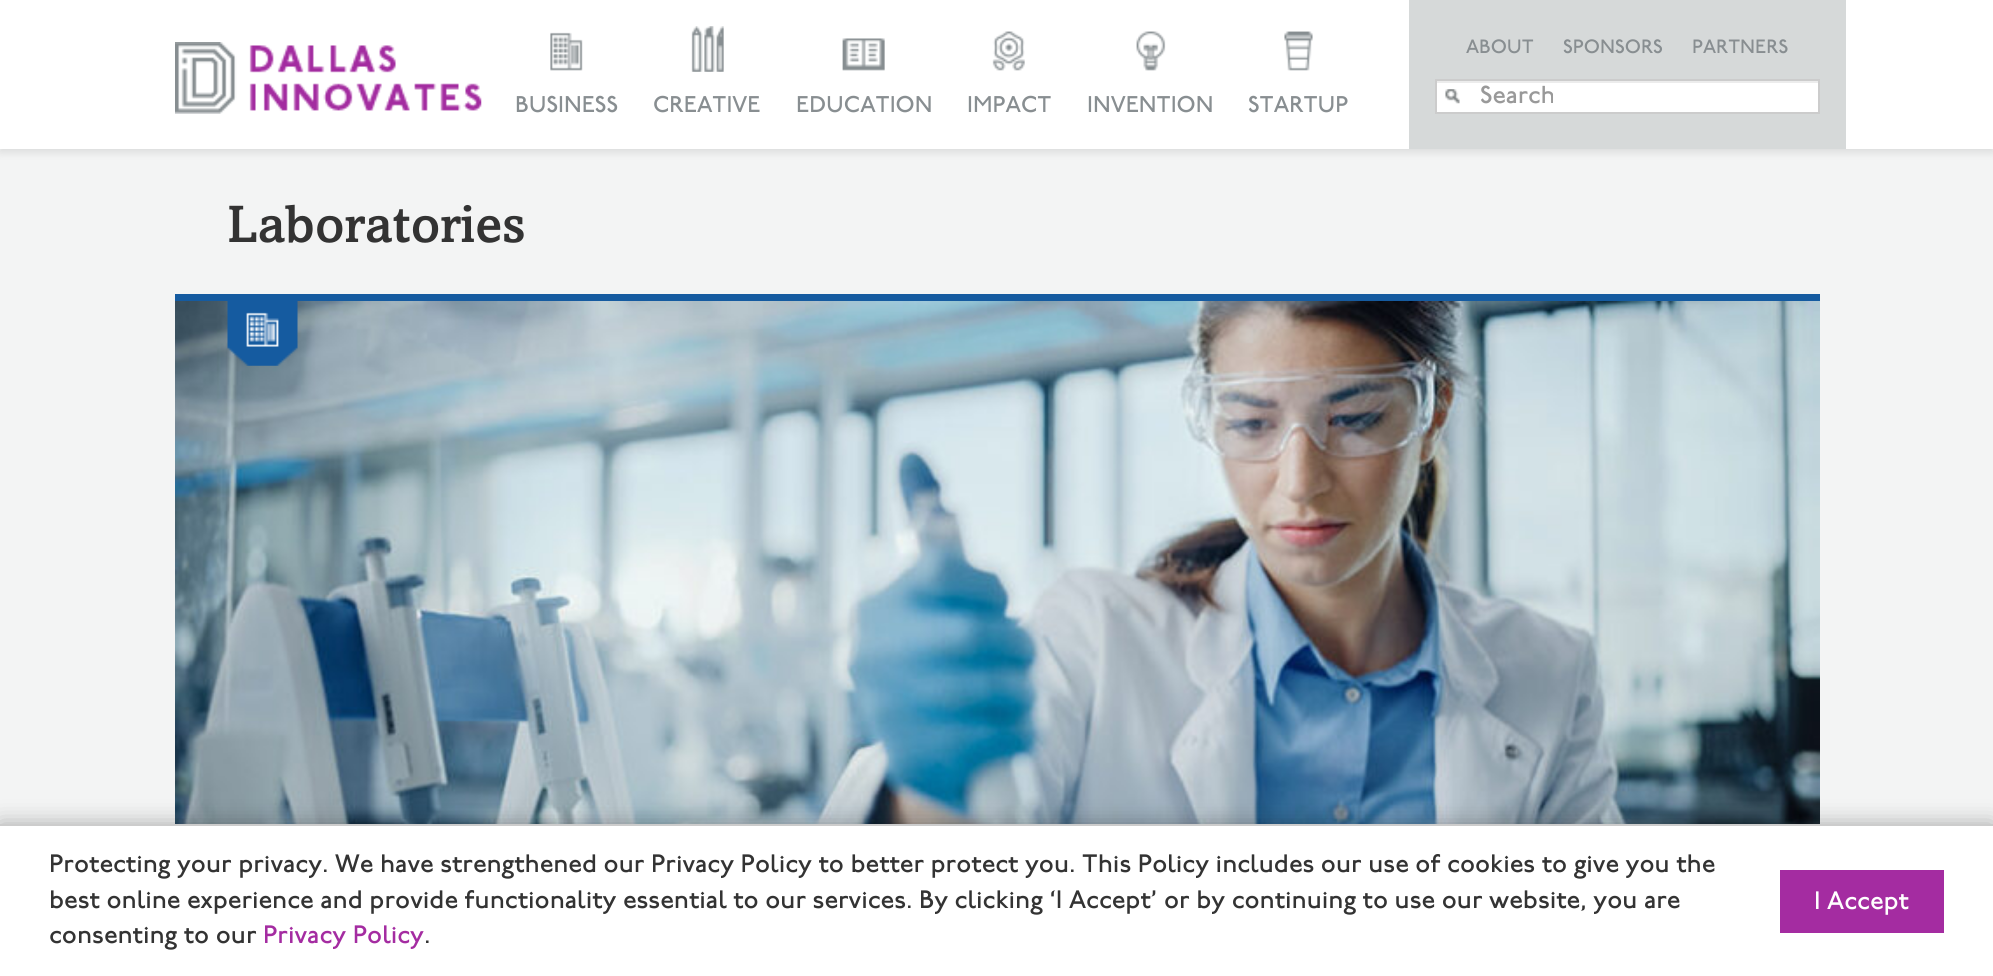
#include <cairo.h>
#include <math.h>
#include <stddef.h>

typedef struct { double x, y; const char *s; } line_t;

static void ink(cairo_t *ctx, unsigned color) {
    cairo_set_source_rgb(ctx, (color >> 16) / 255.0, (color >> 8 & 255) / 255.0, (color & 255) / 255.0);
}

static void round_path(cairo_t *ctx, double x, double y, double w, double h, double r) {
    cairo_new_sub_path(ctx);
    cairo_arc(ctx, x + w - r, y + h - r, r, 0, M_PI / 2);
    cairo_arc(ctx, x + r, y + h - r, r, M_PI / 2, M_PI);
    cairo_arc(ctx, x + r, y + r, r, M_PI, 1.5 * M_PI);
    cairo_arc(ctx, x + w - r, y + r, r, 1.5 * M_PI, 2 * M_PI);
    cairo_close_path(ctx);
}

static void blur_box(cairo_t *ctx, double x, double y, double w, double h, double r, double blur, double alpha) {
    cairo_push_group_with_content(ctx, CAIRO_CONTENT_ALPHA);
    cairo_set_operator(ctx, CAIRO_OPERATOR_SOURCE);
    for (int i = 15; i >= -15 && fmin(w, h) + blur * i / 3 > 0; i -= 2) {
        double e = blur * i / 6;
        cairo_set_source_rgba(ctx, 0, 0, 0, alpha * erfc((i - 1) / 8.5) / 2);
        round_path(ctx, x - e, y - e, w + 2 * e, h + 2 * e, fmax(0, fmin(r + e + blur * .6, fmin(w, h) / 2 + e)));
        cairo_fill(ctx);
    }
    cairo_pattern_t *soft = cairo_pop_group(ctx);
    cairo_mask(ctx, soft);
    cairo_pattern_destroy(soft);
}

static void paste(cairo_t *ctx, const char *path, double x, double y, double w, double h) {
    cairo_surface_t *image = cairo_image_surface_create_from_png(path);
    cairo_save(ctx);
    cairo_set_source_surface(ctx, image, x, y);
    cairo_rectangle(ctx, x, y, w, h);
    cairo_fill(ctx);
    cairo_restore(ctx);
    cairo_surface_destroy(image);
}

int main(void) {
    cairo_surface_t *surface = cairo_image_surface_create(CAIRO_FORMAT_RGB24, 1993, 976);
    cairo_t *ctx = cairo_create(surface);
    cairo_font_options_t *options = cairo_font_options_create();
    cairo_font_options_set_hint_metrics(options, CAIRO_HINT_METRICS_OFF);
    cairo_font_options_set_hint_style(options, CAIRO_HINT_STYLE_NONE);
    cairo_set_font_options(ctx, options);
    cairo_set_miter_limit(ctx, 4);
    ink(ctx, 0xF3F4F4);
    cairo_paint(ctx);
    ink(ctx, 0x000000);
    blur_box(ctx, 0, 4, 1993, 148, 0, 4.5, 0.11);
    ink(ctx, 0xFFFFFF);
    cairo_rectangle(ctx, 0, 0, 1993, 149);
    cairo_fill(ctx);
    paste(ctx, "media/1.png", 175, 42, 307, 72);
    paste(ctx, "media/2.png", 550, 32, 33, 39);
    cairo_select_font_face(ctx, "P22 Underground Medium", CAIRO_FONT_SLANT_NORMAL, CAIRO_FONT_WEIGHT_NORMAL);
    cairo_set_font_size(ctx, 22.75);
    ink(ctx, 0x888E91);
    cairo_move_to(ctx, 515, 112);
    cairo_show_text(ctx, "BUSINESS");
    paste(ctx, "media/3.png", 691, 26, 33, 46);
    cairo_move_to(ctx, 653, 112);
    cairo_show_text(ctx, "CREATIVE");
    paste(ctx, "media/4.png", 842, 38, 43, 33);
    cairo_move_to(ctx, 796, 112);
    cairo_show_text(ctx, "EDUCATION");
    paste(ctx, "media/5.png", 992, 31, 33, 40);
    cairo_move_to(ctx, 967, 112);
    cairo_show_text(ctx, "IMPACT");
    paste(ctx, "media/6.png", 1136, 31, 30, 40);
    cairo_move_to(ctx, 1087, 112);
    cairo_show_text(ctx, "INVENTION");
    paste(ctx, "media/7.png", 1284, 31, 29, 40);
    cairo_move_to(ctx, 1248, 112);
    cairo_show_text(ctx, "STARTUP");
    ink(ctx, 0xD6D9D9);
    cairo_rectangle(ctx, 1409, 0, 437, 149);
    cairo_fill(ctx);
    cairo_set_font_size(ctx, 19.25);
    ink(ctx, 0x888E91);
    {
        static const line_t items[] = {
            {1466, 53, "ABOUT"},
            {1563, 53, "SPONSORS"},
            {1692, 53, "PARTNERS"},
        };
        for (size_t i = 0; i < sizeof items / sizeof *items; i++) {
            cairo_move_to(ctx, items[i].x, items[i].y);
            cairo_show_text(ctx, items[i].s);
        }
    }
    ink(ctx, 0xFFFFFF);
    cairo_rectangle(ctx, 1437, 83, 381, 29);
    cairo_fill(ctx);
    paste(ctx, "media/8.png", 1445, 89, 15, 15);
    ink(ctx, 0xECECEC);
    cairo_rectangle(ctx, 1437, 81, 381, 2);
    cairo_fill(ctx);
    cairo_rectangle(ctx, 1436, 80, 383, 33);
    ink(ctx, 0xCCCCCC);
    cairo_stroke(ctx);
    cairo_save(ctx);
    cairo_rectangle(ctx, 1481, 81, 309, 29);
    cairo_clip(ctx);
    cairo_set_font_size(ctx, 24.5);
    ink(ctx, 0x999999);
    cairo_move_to(ctx, 1480, 103);
    cairo_show_text(ctx, "Search");
    cairo_restore(ctx);
    cairo_select_font_face(ctx, "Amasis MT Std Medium", CAIRO_FONT_SLANT_NORMAL, CAIRO_FONT_WEIGHT_NORMAL);
    cairo_set_font_size(ctx, 52.5);
    ink(ctx, 0x333333);
    cairo_move_to(ctx, 227, 242);
    cairo_show_text(ctx, "Laboratories");
    ink(ctx, 0x155BA0);
    cairo_rectangle(ctx, 175, 294, 1645, 7);
    cairo_fill(ctx);
    paste(ctx, "media/9.png", 175, 301, 1645, 523);
    paste(ctx, "media/10.png", 227, 301, 71, 65);
    ink(ctx, 0x000000);
    blur_box(ctx, 0, 824, 1993, 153, 0, 11.5, 0.3);
    ink(ctx, 0xFFFFFF);
    cairo_rectangle(ctx, 0, 826, 1993, 150);
    cairo_fill(ctx);
    ink(ctx, 0xCCCCCC);
    cairo_rectangle(ctx, 0, 824, 1993, 2);
    cairo_fill(ctx);
    cairo_select_font_face(ctx, "P22 Underground Medium", CAIRO_FONT_SLANT_NORMAL, CAIRO_FONT_WEIGHT_NORMAL);
    cairo_set_font_size(ctx, 25.2);
    ink(ctx, 0x333333);
    {
        static const line_t items[] = {
            {49, 872, "Protecting your privacy. We have strengthened our Privacy Policy to better protect you. This Policy includes our use of cookies to give you the"},
            {49, 908, "best online experience and provide functionality essential to our services. By clicking ‘I Accept’ or by continuing to use our website, you are"},
            {49, 943, "consenting to our"},
        };
        for (size_t i = 0; i < sizeof items / sizeof *items; i++) {
            cairo_move_to(ctx, items[i].x, items[i].y);
            cairo_show_text(ctx, items[i].s);
        }
    }
    ink(ctx, 0xA42CA1);
    cairo_move_to(ctx, 263, 943);
    cairo_show_text(ctx, "Privacy Policy");
    ink(ctx, 0x333333);
    cairo_move_to(ctx, 424, 943);
    cairo_show_text(ctx, ".");
    ink(ctx, 0xA42CA1);
    cairo_rectangle(ctx, 1780, 870, 164, 63);
    cairo_fill(ctx);
    ink(ctx, 0xFFFFFF);
    cairo_move_to(ctx, 1814, 909);
    cairo_show_text(ctx, "I Accept");
    cairo_surface_write_to_png(surface, "image.png");
    cairo_font_options_destroy(options);
    cairo_destroy(ctx);
    cairo_surface_destroy(surface);
    return 0;
}
